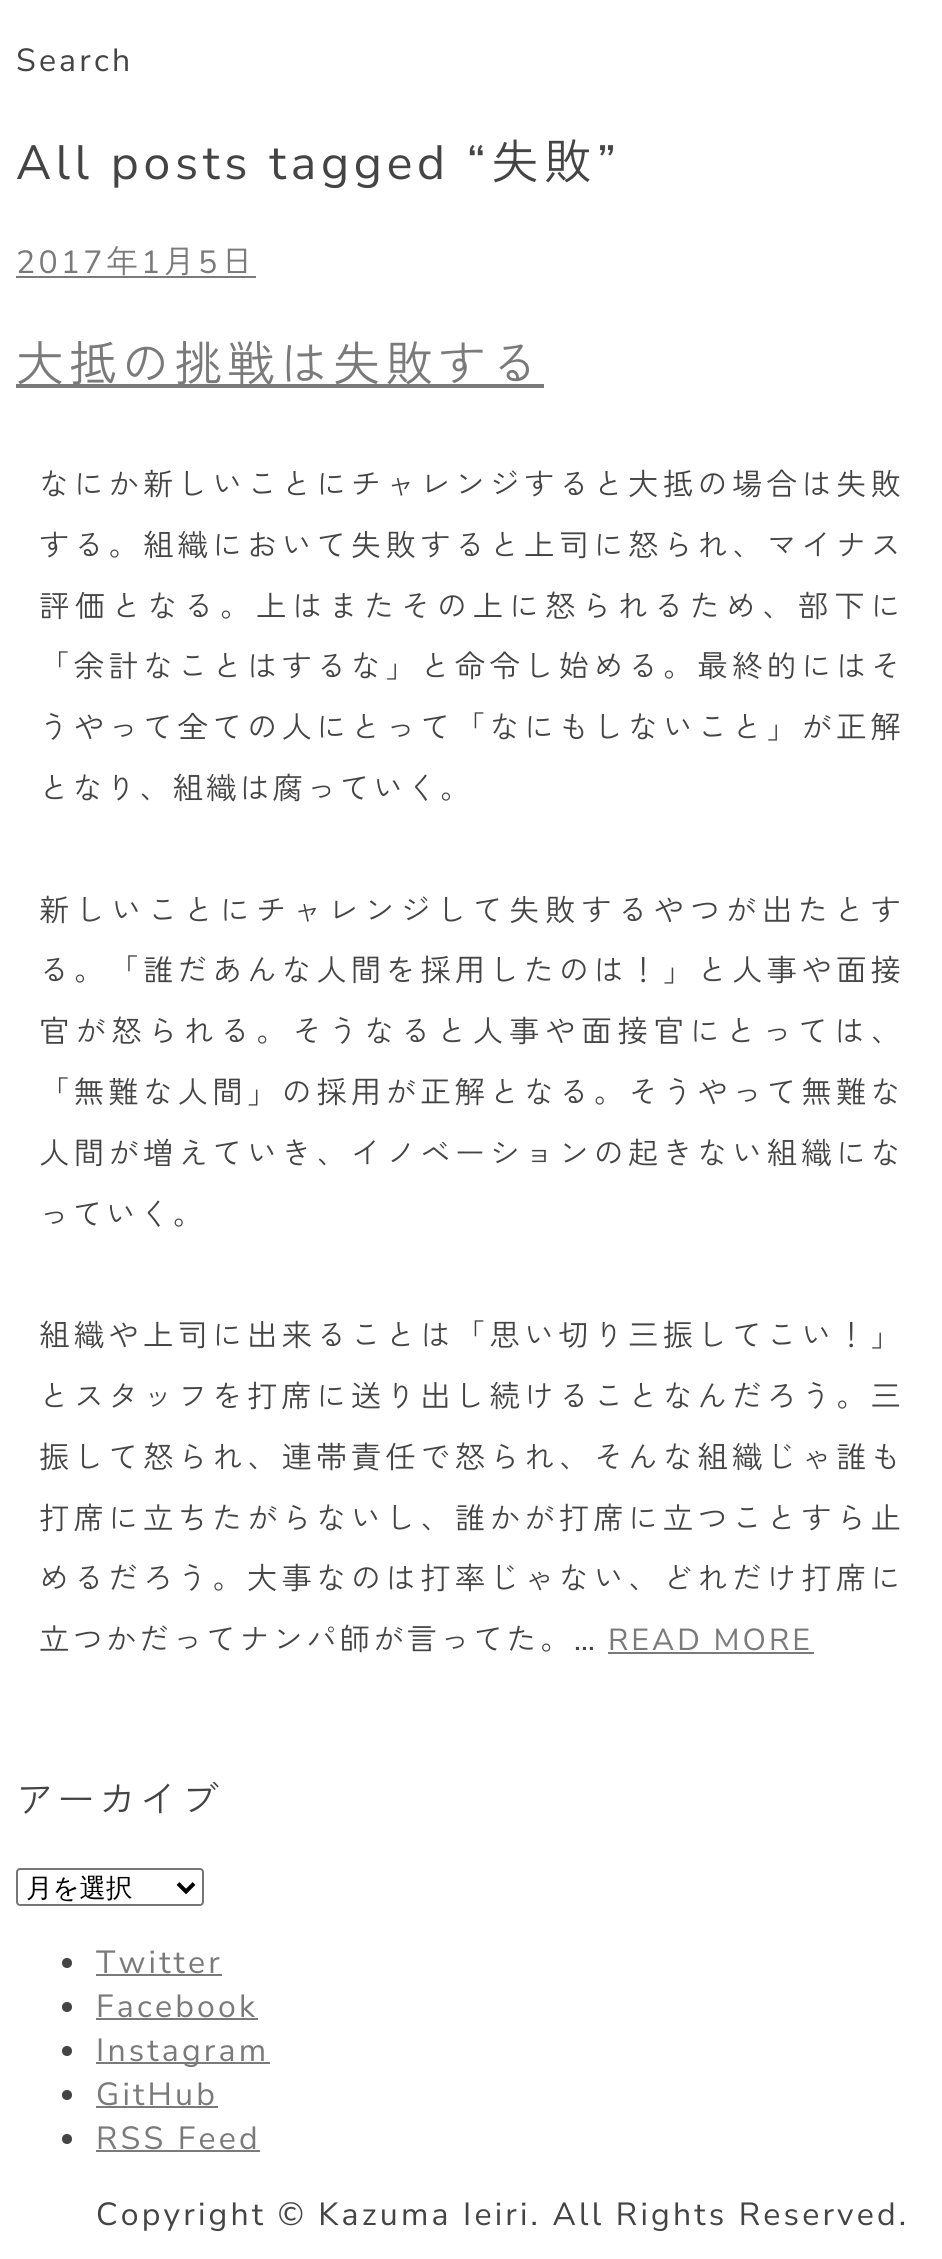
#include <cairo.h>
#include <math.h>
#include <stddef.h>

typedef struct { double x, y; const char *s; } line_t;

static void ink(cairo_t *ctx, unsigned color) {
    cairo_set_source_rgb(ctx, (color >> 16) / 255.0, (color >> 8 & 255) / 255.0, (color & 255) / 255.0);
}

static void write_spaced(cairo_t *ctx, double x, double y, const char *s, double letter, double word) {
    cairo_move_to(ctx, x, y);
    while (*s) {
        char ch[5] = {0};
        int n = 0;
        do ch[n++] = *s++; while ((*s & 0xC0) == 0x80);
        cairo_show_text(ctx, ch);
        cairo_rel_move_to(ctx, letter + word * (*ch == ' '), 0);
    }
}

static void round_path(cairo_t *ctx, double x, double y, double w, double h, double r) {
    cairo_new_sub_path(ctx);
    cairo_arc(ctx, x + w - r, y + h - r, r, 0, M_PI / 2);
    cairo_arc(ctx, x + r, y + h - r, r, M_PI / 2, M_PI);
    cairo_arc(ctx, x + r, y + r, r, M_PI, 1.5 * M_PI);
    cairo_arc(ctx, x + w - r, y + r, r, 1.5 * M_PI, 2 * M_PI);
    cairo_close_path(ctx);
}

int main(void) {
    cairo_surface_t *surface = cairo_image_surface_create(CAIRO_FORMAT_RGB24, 942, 2259);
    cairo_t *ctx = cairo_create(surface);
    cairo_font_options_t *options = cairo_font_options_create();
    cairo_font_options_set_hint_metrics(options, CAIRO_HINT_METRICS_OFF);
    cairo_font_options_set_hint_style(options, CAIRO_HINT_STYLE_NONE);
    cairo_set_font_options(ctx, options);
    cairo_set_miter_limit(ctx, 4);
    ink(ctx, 0xFFFFFF);
    cairo_paint(ctx);
    cairo_select_font_face(ctx, "Nunito Sans", CAIRO_FONT_SLANT_NORMAL, CAIRO_FONT_WEIGHT_NORMAL);
    cairo_set_font_size(ctx, 32);
    ink(ctx, 0x444444);
    write_spaced(ctx, 16, 71, "Search", 3.2, 0);
    cairo_set_font_size(ctx, 48);
    write_spaced(ctx, 16, 179, "All posts tagged “", 4.75, 0);
    cairo_select_font_face(ctx, "Zen Kaku Gothic New", CAIRO_FONT_SLANT_NORMAL, CAIRO_FONT_WEIGHT_NORMAL);
    write_spaced(ctx, 491, 179, "失敗", 4.75, 0);
    cairo_select_font_face(ctx, "Nunito Sans", CAIRO_FONT_SLANT_NORMAL, CAIRO_FONT_WEIGHT_NORMAL);
    write_spaced(ctx, 597, 179, "”", 4.75, 0);
    cairo_set_font_size(ctx, 32);
    ink(ctx, 0x7A7A7A);
    write_spaced(ctx, 16, 273, "2017", 3.2, 0);
    cairo_rectangle(ctx, 16, 276, 240, 2);
    cairo_fill(ctx);
    cairo_select_font_face(ctx, "Zen Kaku Gothic New", CAIRO_FONT_SLANT_NORMAL, CAIRO_FONT_WEIGHT_NORMAL);
    write_spaced(ctx, 106, 273, "年", 3.2, 0);
    cairo_select_font_face(ctx, "Nunito Sans", CAIRO_FONT_SLANT_NORMAL, CAIRO_FONT_WEIGHT_NORMAL);
    write_spaced(ctx, 141, 273, "1", 3.2, 0);
    cairo_select_font_face(ctx, "Zen Kaku Gothic New", CAIRO_FONT_SLANT_NORMAL, CAIRO_FONT_WEIGHT_NORMAL);
    write_spaced(ctx, 163, 273, "月", 3.2, 0);
    cairo_select_font_face(ctx, "Nunito Sans", CAIRO_FONT_SLANT_NORMAL, CAIRO_FONT_WEIGHT_NORMAL);
    write_spaced(ctx, 198, 273, "5", 3.2, 0);
    cairo_select_font_face(ctx, "Zen Kaku Gothic New", CAIRO_FONT_SLANT_NORMAL, CAIRO_FONT_WEIGHT_NORMAL);
    write_spaced(ctx, 221, 273, "日", 3.2, 0);
    cairo_rectangle(ctx, 16, 384, 528, 4);
    cairo_fill(ctx);
    cairo_set_font_size(ctx, 48);
    write_spaced(ctx, 16, 381, "大抵の挑戦は失敗する", 4.75, 0);
    cairo_set_font_size(ctx, 30.4);
    ink(ctx, 0x444444);
    write_spaced(ctx, 39, 495, "なにか新しいことにチャレンジすると大抵の場合は失敗", 4.25, 0);
    write_spaced(ctx, 39, 556, "する。組織において失敗すると上司に怒られ、マイナス", 4.25, 0);
    write_spaced(ctx, 39, 617, "評価となる。上はまたその上に怒られるため、部下に", 5.75, 0);
    write_spaced(ctx, 39, 677, "「余計なことはするな」と命令し始める。最終的にはそ", 4.25, 0);
    write_spaced(ctx, 39, 738, "うやって全ての人にとって「なにもしないこと」が正解", 4.25, 0);
    write_spaced(ctx, 39, 799, "となり、組織は腐っていく。", 3, 0);
    write_spaced(ctx, 39, 921, "新しいことにチャレンジして失敗するやつが出たとす", 5.75, 0);
    write_spaced(ctx, 39, 981, "る。「誰だあんな人間を採用したのは！」と人事や面接", 4.25, 0);
    write_spaced(ctx, 39, 1042, "官が怒られる。そうなると人事や面接官にとっては、", 5.75, 0);
    write_spaced(ctx, 39, 1103, "「無難な人間」の採用が正解となる。そうやって無難な", 4.25, 0);
    write_spaced(ctx, 39, 1164, "人間が増えていき、イノベーションの起きない組織にな", 4.25, 0);
    write_spaced(ctx, 39, 1225, "っていく。", 3, 0);
    {
        static const line_t items[] = {
            {39, 1346, "組織や上司に出来ることは「思い切り三振してこい！」"},
            {39, 1407, "とスタッフを打席に送り出し続けることなんだろう。三"},
            {39, 1468, "振して怒られ、連帯責任で怒られ、そんな組織じゃ誰も"},
            {39, 1529, "打席に立ちたがらないし、誰かが打席に立つことすら止"},
            {39, 1589, "めるだろう。大事なのは打率じゃない、どれだけ打席に"},
        };
        for (size_t i = 0; i < sizeof items / sizeof *items; i++) {
            write_spaced(ctx, items[i].x, items[i].y, items[i].s, 4.25, 0);
        }
    }
    write_spaced(ctx, 39, 1650, "立つかだってナンパ師が言ってた。", 3, 0);
    cairo_select_font_face(ctx, "Nunito Sans", CAIRO_FONT_SLANT_NORMAL, CAIRO_FONT_WEIGHT_NORMAL);
    write_spaced(ctx, 574, 1650, "…", 3, 0);
    ink(ctx, 0x7A7A7A);
    write_spaced(ctx, 608, 1650, "READ MORE", 3, 0);
    cairo_rectangle(ctx, 608, 1652, 206, 2);
    cairo_fill(ctx);
    cairo_select_font_face(ctx, "Zen Kaku Gothic New", CAIRO_FONT_SLANT_NORMAL, CAIRO_FONT_WEIGHT_NORMAL);
    cairo_set_font_size(ctx, 37.5);
    ink(ctx, 0x444444);
    write_spaced(ctx, 16, 1813, "アーカイブ", 3.75, 0);
    round_path(ctx, 17, 1869, 186, 36, 3);
    ink(ctx, 0x767676);
    cairo_stroke(ctx);
    cairo_new_path(ctx);
    cairo_move_to(ctx, 178, 1883.5);
    cairo_line_to(ctx, 186, 1891.5);
    cairo_line_to(ctx, 194, 1883.5);
    ink(ctx, 0x000000);
    cairo_set_line_width(ctx, 4);
    cairo_stroke(ctx);
    cairo_select_font_face(ctx, "WenQuanYi Zen Hei Medium", CAIRO_FONT_SLANT_NORMAL, CAIRO_FONT_WEIGHT_NORMAL);
    cairo_set_font_size(ctx, 26.5);
    cairo_move_to(ctx, 26, 1897);
    cairo_show_text(ctx, "月を選択");
    ink(ctx, 0x444444);
    cairo_new_path(ctx);
    cairo_arc(ctx, 67, 1963, 5, 0, 2 * M_PI);
    cairo_fill(ctx);
    cairo_select_font_face(ctx, "Nunito Sans", CAIRO_FONT_SLANT_NORMAL, CAIRO_FONT_WEIGHT_NORMAL);
    cairo_set_font_size(ctx, 32);
    ink(ctx, 0x7A7A7A);
    write_spaced(ctx, 96, 1973, "Twitter", 3.2, 0);
    cairo_rectangle(ctx, 96, 1974, 126, 2);
    cairo_fill(ctx);
    ink(ctx, 0x444444);
    cairo_arc(ctx, 67, 2007, 5, 0, 2 * M_PI);
    cairo_fill(ctx);
    ink(ctx, 0x7A7A7A);
    write_spaced(ctx, 96, 2017, "Facebook", 3.2, 0);
    cairo_rectangle(ctx, 96, 2018, 162, 2);
    cairo_fill(ctx);
    ink(ctx, 0x444444);
    cairo_arc(ctx, 67, 2051, 5, 0, 2 * M_PI);
    cairo_fill(ctx);
    ink(ctx, 0x7A7A7A);
    cairo_rectangle(ctx, 96, 2062, 174, 2);
    cairo_fill(ctx);
    write_spaced(ctx, 96, 2061, "Instagram", 3.2, 0);
    ink(ctx, 0x444444);
    cairo_new_path(ctx);
    cairo_arc(ctx, 67, 2095, 5, 0, 2 * M_PI);
    cairo_fill(ctx);
    ink(ctx, 0x7A7A7A);
    write_spaced(ctx, 96, 2105, "GitHub", 3.2, 0);
    cairo_rectangle(ctx, 96, 2106, 122, 2);
    cairo_fill(ctx);
    ink(ctx, 0x444444);
    cairo_arc(ctx, 67, 2139, 5, 0, 2 * M_PI);
    cairo_fill(ctx);
    ink(ctx, 0x7A7A7A);
    write_spaced(ctx, 96, 2149, "RSS Feed", 3.2, 0);
    cairo_rectangle(ctx, 96, 2150, 164, 2);
    cairo_fill(ctx);
    ink(ctx, 0x444444);
    write_spaced(ctx, 96, 2225, "Copyright © Kazuma Ieiri. All Rights Reserved.", 3.2, 0);
    cairo_surface_write_to_png(surface, "image.png");
    cairo_font_options_destroy(options);
    cairo_destroy(ctx);
    cairo_surface_destroy(surface);
    return 0;
}
